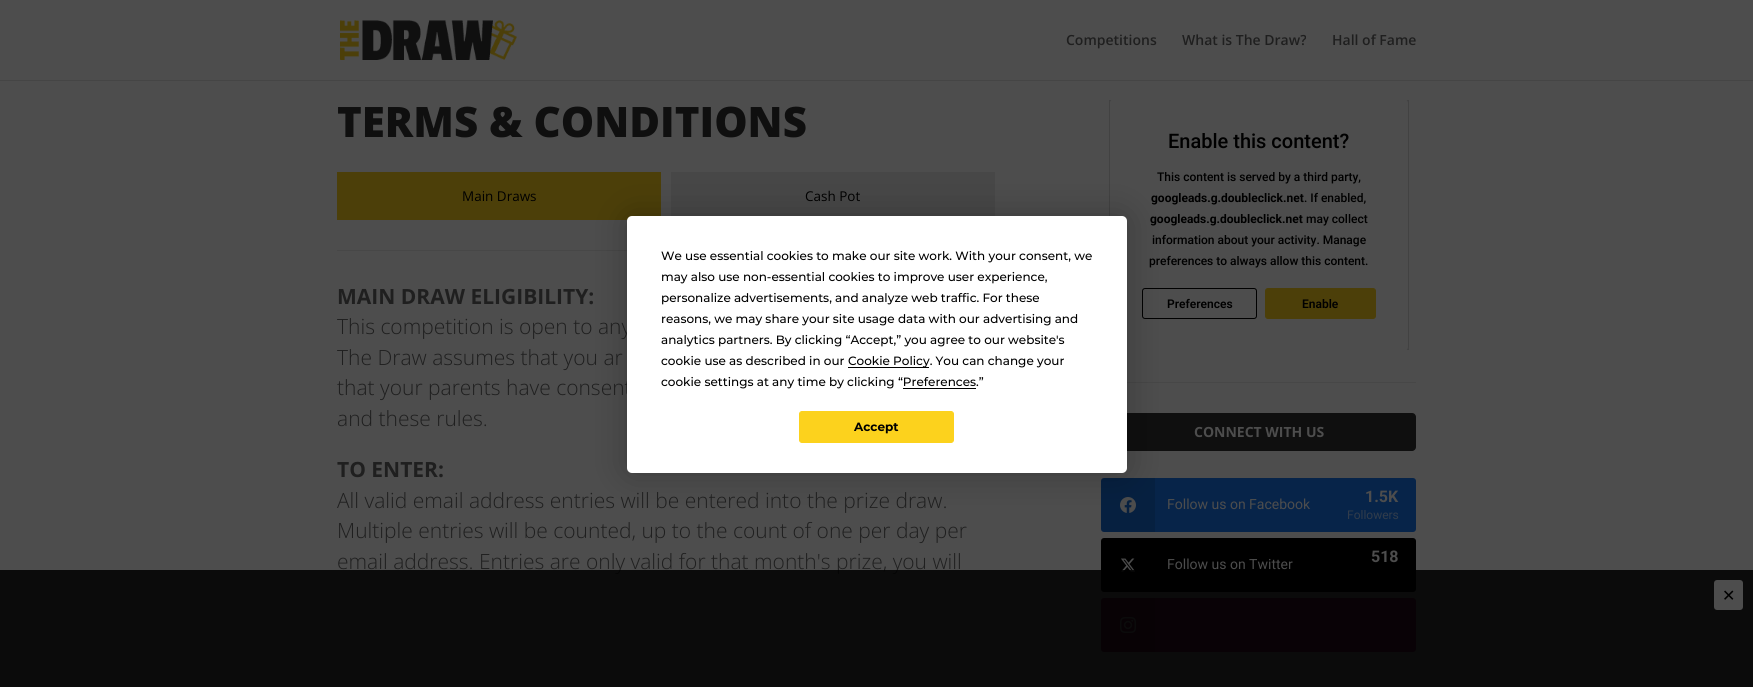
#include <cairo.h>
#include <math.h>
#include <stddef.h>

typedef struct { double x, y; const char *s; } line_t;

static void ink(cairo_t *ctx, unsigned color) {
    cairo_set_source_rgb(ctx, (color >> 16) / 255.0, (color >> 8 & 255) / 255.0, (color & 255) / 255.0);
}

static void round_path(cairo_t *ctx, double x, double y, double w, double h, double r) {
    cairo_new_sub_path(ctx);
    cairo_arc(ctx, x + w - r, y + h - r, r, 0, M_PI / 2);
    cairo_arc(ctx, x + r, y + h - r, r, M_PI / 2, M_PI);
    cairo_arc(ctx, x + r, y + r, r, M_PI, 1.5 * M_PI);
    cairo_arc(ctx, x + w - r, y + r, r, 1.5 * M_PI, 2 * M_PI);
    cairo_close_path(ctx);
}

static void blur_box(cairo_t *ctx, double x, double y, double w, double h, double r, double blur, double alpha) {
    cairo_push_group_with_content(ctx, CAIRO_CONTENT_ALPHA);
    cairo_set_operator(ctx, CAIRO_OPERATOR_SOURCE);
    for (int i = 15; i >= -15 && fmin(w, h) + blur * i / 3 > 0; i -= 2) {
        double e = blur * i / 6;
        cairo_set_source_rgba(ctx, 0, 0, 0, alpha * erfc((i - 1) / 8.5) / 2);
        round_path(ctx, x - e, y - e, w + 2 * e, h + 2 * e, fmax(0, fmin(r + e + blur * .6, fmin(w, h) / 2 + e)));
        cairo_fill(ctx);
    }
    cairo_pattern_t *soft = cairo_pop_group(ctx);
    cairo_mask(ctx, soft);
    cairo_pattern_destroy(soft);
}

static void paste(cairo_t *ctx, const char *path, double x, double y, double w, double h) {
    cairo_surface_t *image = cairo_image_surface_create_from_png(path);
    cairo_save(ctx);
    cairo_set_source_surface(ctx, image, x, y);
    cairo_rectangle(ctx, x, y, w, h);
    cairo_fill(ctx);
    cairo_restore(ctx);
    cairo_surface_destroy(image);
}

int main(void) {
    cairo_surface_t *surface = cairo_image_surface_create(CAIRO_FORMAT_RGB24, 1753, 687);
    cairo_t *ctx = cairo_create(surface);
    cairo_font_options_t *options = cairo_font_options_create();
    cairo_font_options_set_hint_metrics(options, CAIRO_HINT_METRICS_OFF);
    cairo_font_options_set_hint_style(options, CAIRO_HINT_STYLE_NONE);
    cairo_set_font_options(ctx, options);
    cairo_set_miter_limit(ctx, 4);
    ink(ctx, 0x4D4D4D);
    cairo_paint(ctx);
    ink(ctx, 0x454546);
    cairo_rectangle(ctx, 1109, 100, 300, 250);
    cairo_fill(ctx);
    cairo_save(ctx);
    cairo_rectangle(ctx, 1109, 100, 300, 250);
    cairo_clip(ctx);
    ink(ctx, 0x000000);
    blur_box(ctx, 1109, 98, 300, 254, 5, 7.5, 0.15);
    cairo_restore(ctx);
    ink(ctx, 0x454545);
    cairo_rectangle(ctx, 0, 80, 1753, 1);
    cairo_fill(ctx);
    paste(ctx, "media/1.png", 340, 20, 177, 40);
    cairo_select_font_face(ctx, "Open Sans SemiBold", CAIRO_FONT_SLANT_NORMAL, CAIRO_FONT_WEIGHT_NORMAL);
    cairo_set_font_size(ctx, 14);
    ink(ctx, 0x1F1F1F);
    {
        static const line_t items[] = {
            {1066, 45, "Competitions"},
            {1182, 45, "What is The Draw?"},
            {1332, 45, "Hall of Fame"},
        };
        for (size_t i = 0; i < sizeof items / sizeof *items; i++) {
            cairo_move_to(ctx, items[i].x, items[i].y);
            cairo_show_text(ctx, items[i].s);
        }
    }
    cairo_select_font_face(ctx, "Open Sans ExtraBold", CAIRO_FONT_SLANT_NORMAL, CAIRO_FONT_WEIGHT_NORMAL);
    cairo_set_font_size(ctx, 42);
    ink(ctx, 0x0F0F0F);
    cairo_move_to(ctx, 337, 137);
    cairo_show_text(ctx, "TERMS & CONDITIONS");
    ink(ctx, 0x474747);
    cairo_rectangle(ctx, 337, 250, 290, 1);
    cairo_fill(ctx);
    ink(ctx, 0x4C3F09);
    cairo_rectangle(ctx, 337, 172, 324, 48);
    cairo_fill(ctx);
    cairo_select_font_face(ctx, "Open Sans", CAIRO_FONT_SLANT_NORMAL, CAIRO_FONT_WEIGHT_NORMAL);
    cairo_set_font_size(ctx, 13.5);
    ink(ctx, 0x000000);
    cairo_move_to(ctx, 462, 201);
    cairo_show_text(ctx, "Main Draws");
    ink(ctx, 0x474747);
    cairo_rectangle(ctx, 671, 172, 324, 44);
    cairo_fill(ctx);
    ink(ctx, 0x000000);
    cairo_move_to(ctx, 805, 201);
    cairo_show_text(ctx, "Cash Pot");
    cairo_select_font_face(ctx, "Open Sans", CAIRO_FONT_SLANT_NORMAL, CAIRO_FONT_WEIGHT_BOLD);
    cairo_set_font_size(ctx, 21);
    ink(ctx, 0x1F1F1F);
    cairo_move_to(ctx, 337, 304);
    cairo_show_text(ctx, "MAIN DRAW ELIGIBILITY:");
    cairo_select_font_face(ctx, "Open Sans Light", CAIRO_FONT_SLANT_NORMAL, CAIRO_FONT_WEIGHT_NORMAL);
    {
        static const line_t items[] = {
            {337, 334, "This competition is open to any"},
            {337, 365, "The Draw assumes that you ar"},
            {337, 395, "that your parents have consent"},
            {337, 426, "and these rules."},
        };
        for (size_t i = 0; i < sizeof items / sizeof *items; i++) {
            cairo_move_to(ctx, items[i].x, items[i].y);
            cairo_show_text(ctx, items[i].s);
        }
    }
    cairo_select_font_face(ctx, "Open Sans", CAIRO_FONT_SLANT_NORMAL, CAIRO_FONT_WEIGHT_BOLD);
    cairo_move_to(ctx, 337, 477);
    cairo_show_text(ctx, "TO ENTER:");
    cairo_select_font_face(ctx, "Open Sans Light", CAIRO_FONT_SLANT_NORMAL, CAIRO_FONT_WEIGHT_NORMAL);
    {
        static const line_t items[] = {
            {337, 508, "All valid email address entries will be entered into the prize draw."},
            {337, 538, "Multiple entries will be counted, up to the count of one per day per"},
            {337, 569, "email address. Entries are only valid for that month's prize, you will"},
        };
        for (size_t i = 0; i < sizeof items / sizeof *items; i++) {
            cairo_move_to(ctx, items[i].x, items[i].y);
            cairo_show_text(ctx, items[i].s);
        }
    }
    ink(ctx, 0x474747);
    cairo_rectangle(ctx, 1127, 382, 289, 1);
    cairo_fill(ctx);
    cairo_save(ctx);
    cairo_rectangle(ctx, 1109, 100, 300, 250);
    cairo_clip(ctx);
    ink(ctx, 0x4D4D4D);
    round_path(ctx, 1109.5, 98.5, 299, 253, 4.5);
    cairo_fill_preserve(ctx);
    ink(ctx, 0x424242);
    cairo_set_line_width(ctx, 1);
    cairo_stroke(ctx);
    cairo_restore(ctx);
    cairo_select_font_face(ctx, "Roboto Medium", CAIRO_FONT_SLANT_NORMAL, CAIRO_FONT_WEIGHT_NORMAL);
    cairo_set_font_size(ctx, 20);
    ink(ctx, 0x000000);
    cairo_move_to(ctx, 1168, 148);
    cairo_show_text(ctx, "Enable this content?");
    cairo_set_font_size(ctx, 12);
    cairo_move_to(ctx, 1157, 181);
    cairo_show_text(ctx, "This content is served by a third party,");
    cairo_select_font_face(ctx, "Roboto", CAIRO_FONT_SLANT_NORMAL, CAIRO_FONT_WEIGHT_BOLD);
    cairo_move_to(ctx, 1151, 202);
    cairo_show_text(ctx, "googleads.g.doubleclick.net");
    cairo_select_font_face(ctx, "Roboto Medium", CAIRO_FONT_SLANT_NORMAL, CAIRO_FONT_WEIGHT_NORMAL);
    cairo_move_to(ctx, 1304, 202);
    cairo_show_text(ctx, ". If enabled,");
    cairo_select_font_face(ctx, "Roboto", CAIRO_FONT_SLANT_NORMAL, CAIRO_FONT_WEIGHT_BOLD);
    cairo_move_to(ctx, 1150, 223);
    cairo_show_text(ctx, "googleads.g.doubleclick.net");
    cairo_select_font_face(ctx, "Roboto Medium", CAIRO_FONT_SLANT_NORMAL, CAIRO_FONT_WEIGHT_NORMAL);
    {
        static const line_t items[] = {
            {1306, 223, "may collect"},
            {1152, 244, "information about your activity. Manage"},
            {1149, 265, "preferences to always allow this content."},
        };
        for (size_t i = 0; i < sizeof items / sizeof *items; i++) {
            cairo_move_to(ctx, items[i].x, items[i].y);
            cairo_show_text(ctx, items[i].s);
        }
    }
    round_path(ctx, 1142.5, 288.5, 114, 30, 2.5);
    cairo_set_line_width(ctx, 1);
    cairo_stroke(ctx);
    cairo_select_font_face(ctx, "Roboto SemiBold", CAIRO_FONT_SLANT_NORMAL, CAIRO_FONT_WEIGHT_NORMAL);
    cairo_move_to(ctx, 1167, 308);
    cairo_show_text(ctx, "Preferences");
    ink(ctx, 0x4C3F09);
    round_path(ctx, 1265.5, 288.5, 110, 30, 2.5);
    cairo_fill_preserve(ctx);
    cairo_stroke(ctx);
    ink(ctx, 0x000000);
    cairo_move_to(ctx, 1302, 308);
    cairo_show_text(ctx, "Enable");
    ink(ctx, 0x0F0F0F);
    round_path(ctx, 1101, 413, 315, 38, 4);
    cairo_fill(ctx);
    cairo_select_font_face(ctx, "Open Sans", CAIRO_FONT_SLANT_NORMAL, CAIRO_FONT_WEIGHT_BOLD);
    cairo_set_font_size(ctx, 14);
    ink(ctx, 0x4D4D4D);
    cairo_move_to(ctx, 1194, 437);
    cairo_show_text(ctx, "CONNECT WITH US");
    ink(ctx, 0x072449);
    round_path(ctx, 1101, 478, 315, 54, 3);
    cairo_fill(ctx);
    cairo_set_source_rgba(ctx, 0, 0, 0, 0.12);
    cairo_new_path(ctx);
    cairo_move_to(ctx, 1104, 478);
    cairo_line_to(ctx, 1155, 478);
    cairo_line_to(ctx, 1155, 532);
    cairo_line_to(ctx, 1104, 532);
    cairo_curve_to(ctx, 1102.5, 532, 1101, 530.5, 1101, 529);
    cairo_line_to(ctx, 1101, 481);
    cairo_curve_to(ctx, 1101, 479.5, 1102.5, 478, 1104, 478);
    cairo_close_path(ctx);
    cairo_fill(ctx);
    paste(ctx, "media/2.png", 1120, 497, 16, 16);
    cairo_select_font_face(ctx, "Roboto", CAIRO_FONT_SLANT_NORMAL, CAIRO_FONT_WEIGHT_NORMAL);
    ink(ctx, 0x4D4D4D);
    cairo_move_to(ctx, 1167, 509);
    cairo_show_text(ctx, "Follow us on Facebook");
    cairo_select_font_face(ctx, "Roboto", CAIRO_FONT_SLANT_NORMAL, CAIRO_FONT_WEIGHT_BOLD);
    cairo_set_font_size(ctx, 16);
    cairo_move_to(ctx, 1365, 502);
    cairo_show_text(ctx, "1.5K");
    cairo_select_font_face(ctx, "Roboto", CAIRO_FONT_SLANT_NORMAL, CAIRO_FONT_WEIGHT_NORMAL);
    cairo_set_font_size(ctx, 12);
    ink(ctx, 0x313C4B);
    cairo_move_to(ctx, 1347, 519);
    cairo_show_text(ctx, "Followers");
    ink(ctx, 0x000000);
    round_path(ctx, 1101, 538, 315, 54, 3);
    cairo_fill(ctx);
    cairo_select_font_face(ctx, "Roboto", CAIRO_FONT_SLANT_NORMAL, CAIRO_FONT_WEIGHT_BOLD);
    cairo_set_font_size(ctx, 16);
    ink(ctx, 0x4D4D4D);
    cairo_move_to(ctx, 1371, 562);
    cairo_show_text(ctx, "518");
    paste(ctx, "media/3.png", 1121, 558, 15, 14);
    cairo_select_font_face(ctx, "Roboto", CAIRO_FONT_SLANT_NORMAL, CAIRO_FONT_WEIGHT_NORMAL);
    cairo_set_font_size(ctx, 14);
    cairo_move_to(ctx, 1167, 569);
    cairo_show_text(ctx, "Follow us on Twitter");
    ink(ctx, 0x3A1028);
    round_path(ctx, 1101, 598, 315, 54, 3);
    cairo_fill(ctx);
    cairo_set_source_rgba(ctx, 0, 0, 0, 0.12);
    cairo_new_path(ctx);
    cairo_move_to(ctx, 1104, 598);
    cairo_line_to(ctx, 1155, 598);
    cairo_line_to(ctx, 1155, 652);
    cairo_line_to(ctx, 1104, 652);
    cairo_curve_to(ctx, 1102.5, 652, 1101, 650.5, 1101, 649);
    cairo_line_to(ctx, 1101, 601);
    cairo_curve_to(ctx, 1101, 599.5, 1102.5, 598, 1104, 598);
    cairo_close_path(ctx);
    cairo_fill(ctx);
    paste(ctx, "media/4.png", 1120, 617, 16, 16);
    ink(ctx, 0x000000);
    blur_box(ctx, 627, 216, 500, 257, 5, 17.5, 0.25);
    ink(ctx, 0xFFFFFF);
    round_path(ctx, 627, 216, 500, 257, 5);
    cairo_fill(ctx);
    cairo_select_font_face(ctx, "Montserrat Medium", CAIRO_FONT_SLANT_NORMAL, CAIRO_FONT_WEIGHT_NORMAL);
    cairo_set_font_size(ctx, 12);
    ink(ctx, 0x000000);
    {
        static const line_t items[] = {
            {661, 260, "We use essential cookies to make our site work. With your consent, we"},
            {661, 281, "may also use non-essential cookies to improve user experience,"},
            {661, 302, "personalize advertisements, and analyze web traffic. For these"},
            {661, 323, "reasons, we may share your site usage data with our advertising and"},
            {661, 344, "analytics partners. By clicking “Accept,” you agree to our website's"},
            {661, 365, "cookie use as described in our"},
        };
        for (size_t i = 0; i < sizeof items / sizeof *items; i++) {
            cairo_move_to(ctx, items[i].x, items[i].y);
            cairo_show_text(ctx, items[i].s);
        }
    }
    cairo_rectangle(ctx, 848, 367, 81, 1);
    cairo_fill(ctx);
    cairo_move_to(ctx, 848, 365);
    cairo_show_text(ctx, "Cookie Policy. You can change your");
    cairo_move_to(ctx, 661, 386);
    cairo_show_text(ctx, "cookie settings at any time by clicking “Preferences.”");
    cairo_rectangle(ctx, 903, 388, 73, 1);
    cairo_fill(ctx);
    ink(ctx, 0xFCD21D);
    round_path(ctx, 799.5, 411.5, 154, 31, 2.5);
    cairo_fill_preserve(ctx);
    cairo_stroke(ctx);
    cairo_select_font_face(ctx, "Montserrat", CAIRO_FONT_SLANT_NORMAL, CAIRO_FONT_WEIGHT_BOLD);
    ink(ctx, 0x000000);
    cairo_move_to(ctx, 854, 431);
    cairo_show_text(ctx, "Accept");
    cairo_set_source_rgba(ctx, 0, 0, 0, 0.85);
    cairo_rectangle(ctx, 0, 570, 1753, 117);
    cairo_fill(ctx);
    ink(ctx, 0x4D4D4D);
    round_path(ctx, 1714, 580, 29, 30, 3);
    cairo_fill(ctx);
    cairo_select_font_face(ctx, "DejaVu Sans", CAIRO_FONT_SLANT_NORMAL, CAIRO_FONT_WEIGHT_NORMAL);
    cairo_set_font_size(ctx, 16);
    ink(ctx, 0x000000);
    cairo_move_to(ctx, 1722, 601);
    cairo_show_text(ctx, "✕");
    cairo_surface_write_to_png(surface, "image.png");
    cairo_font_options_destroy(options);
    cairo_destroy(ctx);
    cairo_surface_destroy(surface);
    return 0;
}
